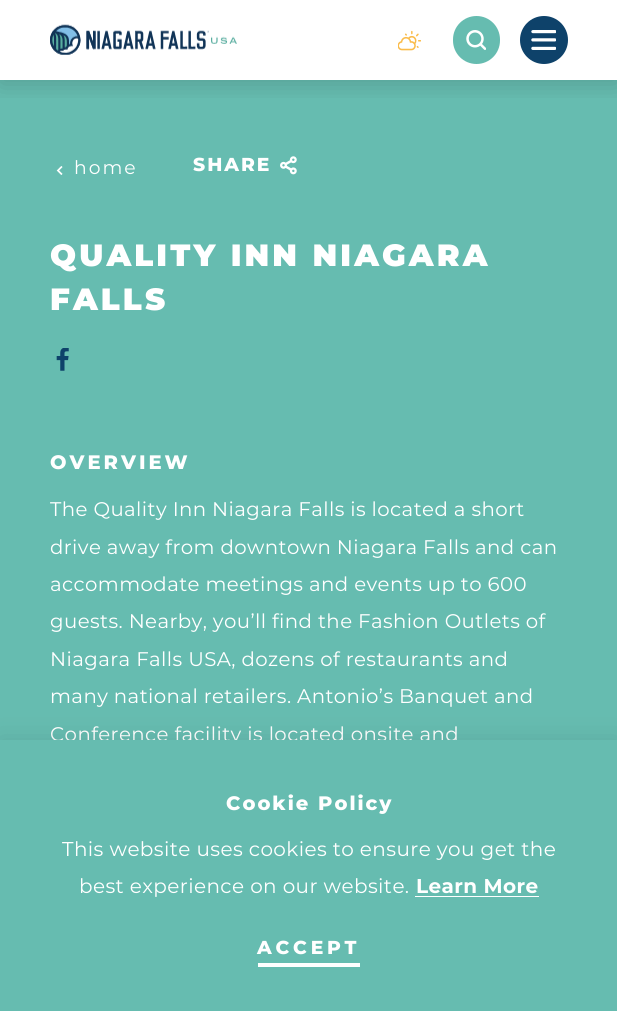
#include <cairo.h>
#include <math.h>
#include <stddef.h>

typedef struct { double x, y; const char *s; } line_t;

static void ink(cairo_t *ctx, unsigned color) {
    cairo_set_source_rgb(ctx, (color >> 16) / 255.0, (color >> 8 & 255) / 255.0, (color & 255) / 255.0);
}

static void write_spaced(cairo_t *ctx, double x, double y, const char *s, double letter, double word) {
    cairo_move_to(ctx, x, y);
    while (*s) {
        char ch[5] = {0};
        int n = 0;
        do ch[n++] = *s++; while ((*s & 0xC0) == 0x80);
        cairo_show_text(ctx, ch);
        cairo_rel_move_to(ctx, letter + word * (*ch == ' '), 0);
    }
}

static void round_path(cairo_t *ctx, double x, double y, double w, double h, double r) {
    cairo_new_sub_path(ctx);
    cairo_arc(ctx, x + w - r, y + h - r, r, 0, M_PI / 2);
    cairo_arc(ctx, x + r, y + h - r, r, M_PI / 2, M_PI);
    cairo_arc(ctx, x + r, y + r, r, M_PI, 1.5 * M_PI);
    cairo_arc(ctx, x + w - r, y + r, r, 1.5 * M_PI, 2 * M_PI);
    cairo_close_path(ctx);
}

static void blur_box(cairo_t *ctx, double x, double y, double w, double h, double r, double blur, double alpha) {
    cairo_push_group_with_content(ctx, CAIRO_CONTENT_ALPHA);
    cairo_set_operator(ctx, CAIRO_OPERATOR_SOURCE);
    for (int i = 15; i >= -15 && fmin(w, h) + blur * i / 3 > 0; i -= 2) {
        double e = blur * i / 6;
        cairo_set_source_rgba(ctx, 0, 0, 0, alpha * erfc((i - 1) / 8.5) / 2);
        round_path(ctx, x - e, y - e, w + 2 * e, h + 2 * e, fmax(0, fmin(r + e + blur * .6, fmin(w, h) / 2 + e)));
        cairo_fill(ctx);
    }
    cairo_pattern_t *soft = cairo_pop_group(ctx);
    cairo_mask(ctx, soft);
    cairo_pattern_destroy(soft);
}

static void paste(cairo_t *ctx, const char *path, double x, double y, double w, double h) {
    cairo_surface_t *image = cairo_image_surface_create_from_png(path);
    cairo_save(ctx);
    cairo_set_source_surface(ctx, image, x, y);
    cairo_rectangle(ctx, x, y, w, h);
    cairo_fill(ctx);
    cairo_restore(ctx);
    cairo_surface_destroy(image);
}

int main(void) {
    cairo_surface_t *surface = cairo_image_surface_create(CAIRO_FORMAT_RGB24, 617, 1011);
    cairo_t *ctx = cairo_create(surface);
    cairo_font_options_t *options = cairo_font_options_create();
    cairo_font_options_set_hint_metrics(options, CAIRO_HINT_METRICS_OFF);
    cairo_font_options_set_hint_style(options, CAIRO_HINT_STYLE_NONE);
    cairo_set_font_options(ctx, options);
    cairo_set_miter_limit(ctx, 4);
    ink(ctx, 0xFFFFFF);
    cairo_paint(ctx);
    ink(ctx, 0x66BCB0);
    cairo_rectangle(ctx, 0, 80, 617, 660);
    cairo_fill(ctx);
    cairo_save(ctx);
    cairo_rectangle(ctx, 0, 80, 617, 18);
    cairo_clip(ctx);
    ink(ctx, 0x000000);
    blur_box(ctx, 0, 4, 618, 80, 0, 12.5, 0.16);
    cairo_restore(ctx);
    paste(ctx, "media/1.png", 50, 24, 187, 31);
    paste(ctx, "media/2.png", 398, 30, 23, 21);
    round_path(ctx, 453, 16, 47, 48, 23.5);
    cairo_fill(ctx);
    paste(ctx, "media/3.png", 466, 30, 20, 20);
    ink(ctx, 0x0E426A);
    cairo_arc(ctx, 544, 40, 24, 0, 2 * M_PI);
    cairo_fill(ctx);
    paste(ctx, "media/4.png", 531, 30, 25, 20);
    paste(ctx, "media/5.png", 56, 166, 7, 9);
    cairo_select_font_face(ctx, "Montserrat", CAIRO_FONT_SLANT_NORMAL, CAIRO_FONT_WEIGHT_NORMAL);
    cairo_set_font_size(ctx, 18.75);
    ink(ctx, 0xFFFFFF);
    write_spaced(ctx, 74, 174, "home", 2, 0);
    cairo_select_font_face(ctx, "Montserrat ExtraBold", CAIRO_FONT_SLANT_NORMAL, CAIRO_FONT_WEIGHT_NORMAL);
    write_spaced(ctx, 193, 171, "SHARE", 2, 0);
    paste(ctx, "media/6.png", 280, 156, 17, 19);
    cairo_select_font_face(ctx, "Montserrat Black", CAIRO_FONT_SLANT_NORMAL, CAIRO_FONT_WEIGHT_NORMAL);
    cairo_set_font_size(ctx, 30.75);
    write_spaced(ctx, 50, 266, "QUALITY INN NIAGARA", 3.1, 0);
    write_spaced(ctx, 50, 310, "FALLS", 3.1, 0);
    paste(ctx, "media/7.png", 56, 348, 13, 23);
    cairo_select_font_face(ctx, "Montserrat ExtraBold", CAIRO_FONT_SLANT_NORMAL, CAIRO_FONT_WEIGHT_NORMAL);
    cairo_set_font_size(ctx, 19.5);
    write_spaced(ctx, 50, 469, "OVERVIEW", 3, 0);
    cairo_select_font_face(ctx, "Montserrat", CAIRO_FONT_SLANT_NORMAL, CAIRO_FONT_WEIGHT_NORMAL);
    cairo_set_font_size(ctx, 19.75);
    {
        static const line_t items[] = {
            {50, 516, "The Quality Inn Niagara Falls is located a short"},
            {50, 554, "drive away from downtown Niagara Falls and can"},
            {50, 591, "accommodate meetings and events up to 600"},
            {50, 628, "guests. Nearby, you’ll find the Fashion Outlets of"},
            {50, 666, "Niagara Falls USA, dozens of restaurants and"},
            {50, 703, "many national retailers. Antonio’s Banquet and"},
            {50, 741, "Conference facility is located onsite and"},
        };
        for (size_t i = 0; i < sizeof items / sizeof *items; i++) {
            write_spaced(ctx, items[i].x, items[i].y, items[i].s, 0.4, 0);
        }
    }
    ink(ctx, 0x000000);
    blur_box(ctx, 0, 740, 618, 271, 0, 12.5, 0.1);
    ink(ctx, 0x66BCB0);
    cairo_rectangle(ctx, 0, 740, 617, 271);
    cairo_fill(ctx);
    cairo_select_font_face(ctx, "Montserrat ExtraBold", CAIRO_FONT_SLANT_NORMAL, CAIRO_FONT_WEIGHT_NORMAL);
    cairo_set_font_size(ctx, 19.5);
    ink(ctx, 0xFFFFFF);
    write_spaced(ctx, 226, 810, "Cookie Policy", 2, 0);
    cairo_select_font_face(ctx, "Montserrat", CAIRO_FONT_SLANT_NORMAL, CAIRO_FONT_WEIGHT_NORMAL);
    cairo_set_font_size(ctx, 20);
    write_spaced(ctx, 62, 856, "This website uses cookies to ensure you get the", 0.4, 0);
    write_spaced(ctx, 79, 893, "best experience on our website.", 0.4, 0);
    cairo_select_font_face(ctx, "Montserrat", CAIRO_FONT_SLANT_NORMAL, CAIRO_FONT_WEIGHT_BOLD);
    write_spaced(ctx, 416, 893, "Learn More", 0.4, 0);
    cairo_rectangle(ctx, 415, 896, 124, 1);
    cairo_fill(ctx);
    cairo_select_font_face(ctx, "Montserrat ExtraBold", CAIRO_FONT_SLANT_NORMAL, CAIRO_FONT_WEIGHT_NORMAL);
    cairo_set_font_size(ctx, 18.75);
    write_spaced(ctx, 257, 954, "ACCEPT", 3.75, 0);
    cairo_rectangle(ctx, 258, 963, 102, 4);
    cairo_fill(ctx);
    cairo_surface_write_to_png(surface, "image.png");
    cairo_font_options_destroy(options);
    cairo_destroy(ctx);
    cairo_surface_destroy(surface);
    return 0;
}
